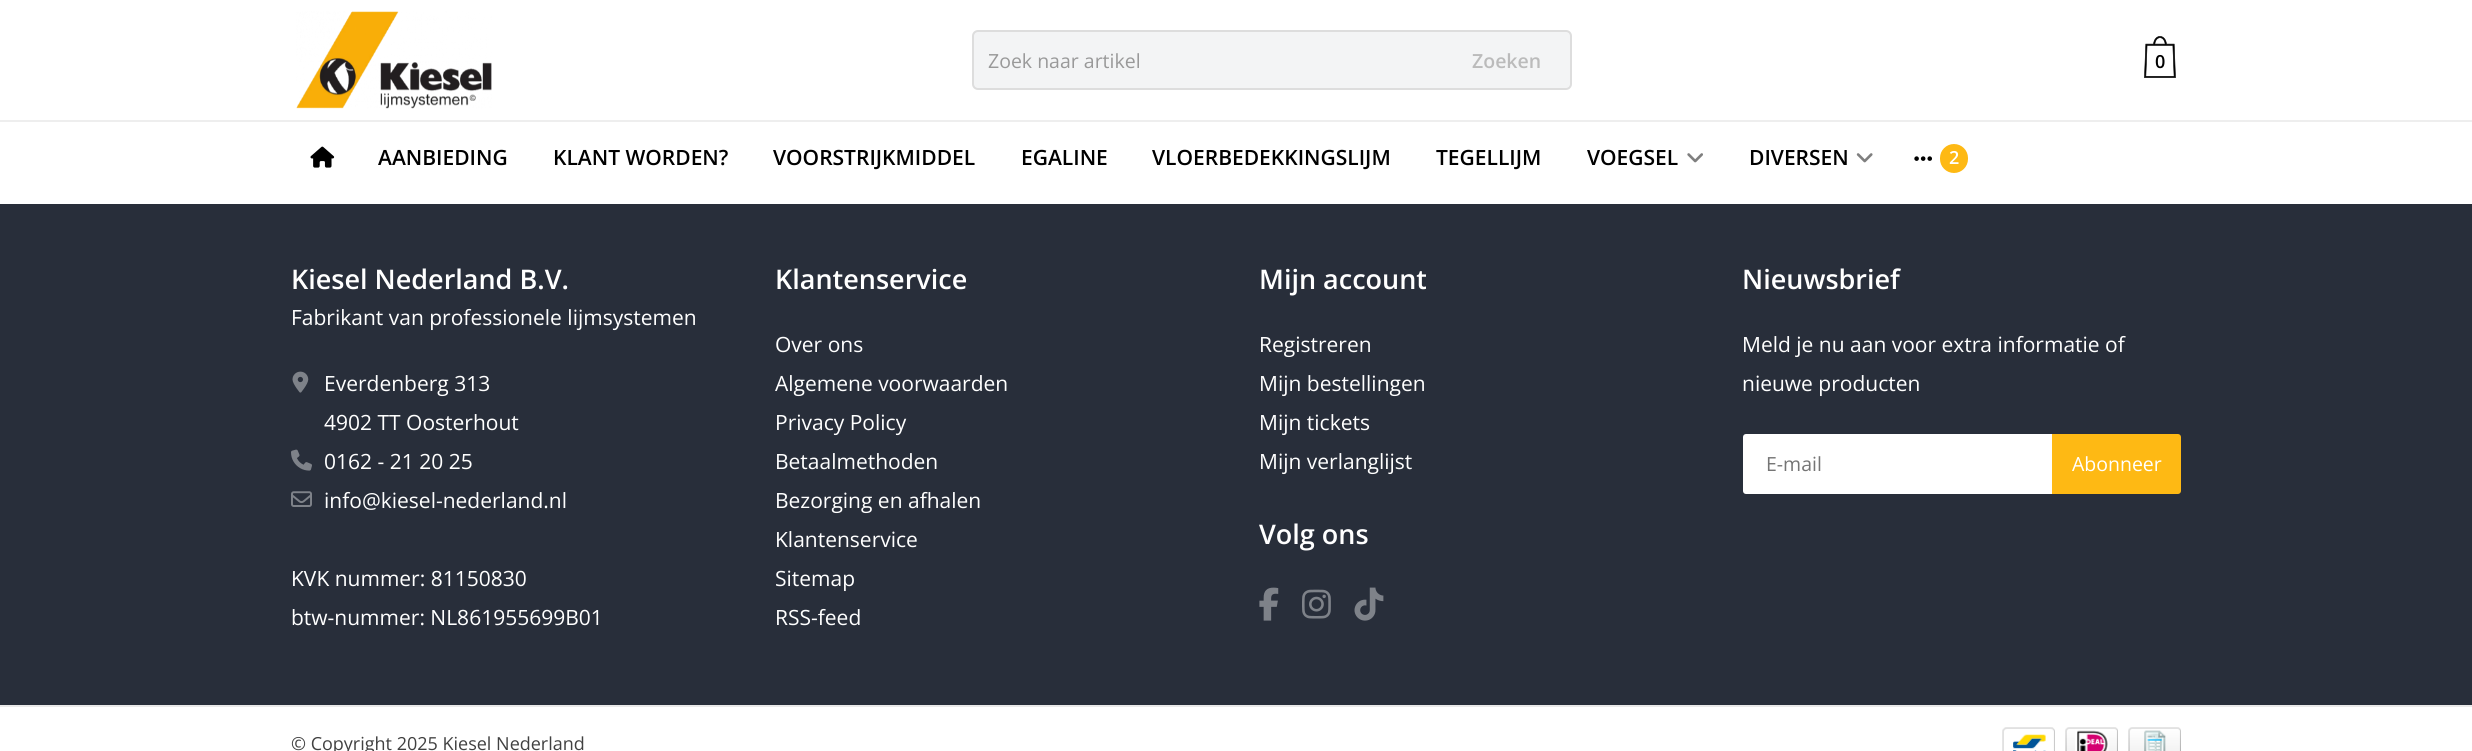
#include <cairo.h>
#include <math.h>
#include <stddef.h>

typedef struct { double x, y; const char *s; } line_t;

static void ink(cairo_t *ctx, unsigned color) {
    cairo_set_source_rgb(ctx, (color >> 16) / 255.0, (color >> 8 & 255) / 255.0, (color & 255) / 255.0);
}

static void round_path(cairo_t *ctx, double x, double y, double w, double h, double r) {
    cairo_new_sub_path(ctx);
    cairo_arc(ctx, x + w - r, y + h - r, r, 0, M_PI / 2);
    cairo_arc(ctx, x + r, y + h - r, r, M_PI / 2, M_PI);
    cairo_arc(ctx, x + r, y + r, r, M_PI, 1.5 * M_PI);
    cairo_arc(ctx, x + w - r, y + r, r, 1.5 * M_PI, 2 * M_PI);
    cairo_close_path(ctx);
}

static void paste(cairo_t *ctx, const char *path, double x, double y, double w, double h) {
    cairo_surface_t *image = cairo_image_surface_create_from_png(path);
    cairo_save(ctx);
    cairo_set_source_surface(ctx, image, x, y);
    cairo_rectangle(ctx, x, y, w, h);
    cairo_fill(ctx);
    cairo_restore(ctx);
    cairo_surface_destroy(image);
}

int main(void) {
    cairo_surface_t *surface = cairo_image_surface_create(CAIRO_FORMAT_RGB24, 2472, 751);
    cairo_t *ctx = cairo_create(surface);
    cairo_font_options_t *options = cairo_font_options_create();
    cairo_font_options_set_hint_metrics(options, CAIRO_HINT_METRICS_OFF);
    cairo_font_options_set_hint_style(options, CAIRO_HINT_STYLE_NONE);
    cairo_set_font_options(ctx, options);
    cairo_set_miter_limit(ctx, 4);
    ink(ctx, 0xFFFFFF);
    cairo_paint(ctx);
    paste(ctx, "media/1.png", 296, 11, 196, 98);
    ink(ctx, 0xF3F4F5);
    round_path(ctx, 973, 31, 598, 58, 5);
    cairo_fill_preserve(ctx);
    ink(ctx, 0xDDDDDD);
    cairo_stroke(ctx);
    cairo_select_font_face(ctx, "Open Sans", CAIRO_FONT_SLANT_NORMAL, CAIRO_FONT_WEIGHT_NORMAL);
    cairo_set_font_size(ctx, 19.5);
    ink(ctx, 0x999999);
    cairo_move_to(ctx, 988, 68);
    cairo_show_text(ctx, "Zoek naar artikel");
    cairo_select_font_face(ctx, "Open Sans SemiBold", CAIRO_FONT_SLANT_NORMAL, CAIRO_FONT_WEIGHT_NORMAL);
    ink(ctx, 0xBBBBBB);
    cairo_move_to(ctx, 1472, 68);
    cairo_show_text(ctx, "Zoeken");
    paste(ctx, "media/2.png", 2144, 36, 32, 42);
    cairo_set_font_size(ctx, 18);
    ink(ctx, 0x000000);
    cairo_move_to(ctx, 2155, 68);
    cairo_show_text(ctx, "0");
    paste(ctx, "media/3.png", 310, 146, 25, 22);
    cairo_set_font_size(ctx, 21);
    {
        static const line_t items[] = {
            {378, 165, "AANBIEDING"},
            {553, 165, "KLANT WORDEN?"},
            {773, 165, "VOORSTRIJKMIDDEL"},
            {1021, 165, "EGALINE"},
            {1152, 165, "VLOERBEDEKKINGSLIJM"},
            {1436, 165, "TEGELLIJM"},
            {1587, 165, "VOEGSEL"},
        };
        for (size_t i = 0; i < sizeof items / sizeof *items; i++) {
            cairo_move_to(ctx, items[i].x, items[i].y);
            cairo_show_text(ctx, items[i].s);
        }
    }
    paste(ctx, "media/4.png", 1687, 153, 16, 10);
    cairo_move_to(ctx, 1749, 165);
    cairo_show_text(ctx, "DIVERSEN");
    paste(ctx, "media/5.png", 1856, 153, 17, 10);
    paste(ctx, "media/6.png", 1914, 156, 18, 5);
    ink(ctx, 0xFEB914);
    round_path(ctx, 1940, 144, 28, 29, 14);
    cairo_fill(ctx);
    cairo_set_font_size(ctx, 18);
    ink(ctx, 0xFFFFFF);
    cairo_move_to(ctx, 1949, 164);
    cairo_show_text(ctx, "2");
    ink(ctx, 0xEEEEEE);
    cairo_rectangle(ctx, 0, 120, 2472, 2);
    cairo_fill(ctx);
    ink(ctx, 0x282E3A);
    cairo_rectangle(ctx, 0, 204, 2472, 501);
    cairo_fill(ctx);
    cairo_set_font_size(ctx, 27);
    ink(ctx, 0xFFFFFF);
    cairo_move_to(ctx, 291, 289);
    cairo_show_text(ctx, "Kiesel Nederland B.V.");
    cairo_select_font_face(ctx, "Open Sans", CAIRO_FONT_SLANT_NORMAL, CAIRO_FONT_WEIGHT_NORMAL);
    cairo_set_font_size(ctx, 21);
    cairo_move_to(ctx, 291, 325);
    cairo_show_text(ctx, "Fabrikant van professionele lijmsystemen");
    paste(ctx, "media/7.png", 292, 371, 17, 22);
    cairo_move_to(ctx, 324, 391);
    cairo_show_text(ctx, "Everdenberg 313");
    cairo_move_to(ctx, 324, 430);
    cairo_show_text(ctx, "4902 TT Oosterhout");
    paste(ctx, "media/8.png", 291, 449, 21, 22);
    cairo_move_to(ctx, 324, 469);
    cairo_show_text(ctx, "0162 - 21 20 25");
    paste(ctx, "media/9.png", 291, 491, 21, 16);
    {
        static const line_t items[] = {
            {324, 508, "info@kiesel-nederland.nl"},
            {291, 586, "KVK nummer: 81150830"},
            {291, 625, "btw-nummer: NL861955699B01"},
        };
        for (size_t i = 0; i < sizeof items / sizeof *items; i++) {
            cairo_move_to(ctx, items[i].x, items[i].y);
            cairo_show_text(ctx, items[i].s);
        }
    }
    cairo_select_font_face(ctx, "Open Sans SemiBold", CAIRO_FONT_SLANT_NORMAL, CAIRO_FONT_WEIGHT_NORMAL);
    cairo_set_font_size(ctx, 27);
    cairo_move_to(ctx, 775, 289);
    cairo_show_text(ctx, "Klantenservice");
    cairo_select_font_face(ctx, "Open Sans", CAIRO_FONT_SLANT_NORMAL, CAIRO_FONT_WEIGHT_NORMAL);
    cairo_set_font_size(ctx, 21);
    {
        static const line_t items[] = {
            {775, 352, "Over ons"},
            {775, 391, "Algemene voorwaarden"},
            {775, 430, "Privacy Policy"},
            {775, 469, "Betaalmethoden"},
            {775, 508, "Bezorging en afhalen"},
            {775, 547, "Klantenservice"},
            {775, 586, "Sitemap"},
            {775, 625, "RSS-feed"},
        };
        for (size_t i = 0; i < sizeof items / sizeof *items; i++) {
            cairo_move_to(ctx, items[i].x, items[i].y);
            cairo_show_text(ctx, items[i].s);
        }
    }
    cairo_select_font_face(ctx, "Open Sans SemiBold", CAIRO_FONT_SLANT_NORMAL, CAIRO_FONT_WEIGHT_NORMAL);
    cairo_set_font_size(ctx, 27);
    cairo_move_to(ctx, 1259, 289);
    cairo_show_text(ctx, "Mijn account");
    cairo_select_font_face(ctx, "Open Sans", CAIRO_FONT_SLANT_NORMAL, CAIRO_FONT_WEIGHT_NORMAL);
    cairo_set_font_size(ctx, 21);
    {
        static const line_t items[] = {
            {1259, 352, "Registreren"},
            {1259, 391, "Mijn bestellingen"},
            {1259, 430, "Mijn tickets"},
            {1259, 469, "Mijn verlanglijst"},
        };
        for (size_t i = 0; i < sizeof items / sizeof *items; i++) {
            cairo_move_to(ctx, items[i].x, items[i].y);
            cairo_show_text(ctx, items[i].s);
        }
    }
    cairo_select_font_face(ctx, "Open Sans SemiBold", CAIRO_FONT_SLANT_NORMAL, CAIRO_FONT_WEIGHT_NORMAL);
    cairo_set_font_size(ctx, 27);
    cairo_move_to(ctx, 1259, 544);
    cairo_show_text(ctx, "Volg ons");
    paste(ctx, "media/10.png", 1259, 587, 20, 34);
    paste(ctx, "media/11.png", 1302, 589, 29, 30);
    paste(ctx, "media/12.png", 1354, 587, 30, 34);
    cairo_move_to(ctx, 1742, 289);
    cairo_show_text(ctx, "Nieuwsbrief");
    cairo_select_font_face(ctx, "Open Sans", CAIRO_FONT_SLANT_NORMAL, CAIRO_FONT_WEIGHT_NORMAL);
    cairo_set_font_size(ctx, 21);
    cairo_move_to(ctx, 1742, 352);
    cairo_show_text(ctx, "Meld je nu aan voor extra informatie of");
    cairo_move_to(ctx, 1742, 391);
    cairo_show_text(ctx, "nieuwe producten");
    round_path(ctx, 1744, 435, 427, 58, 2);
    cairo_fill_preserve(ctx);
    cairo_stroke(ctx);
    cairo_set_font_size(ctx, 19.5);
    ink(ctx, 0x757575);
    cairo_move_to(ctx, 1766, 471);
    cairo_show_text(ctx, "E-mail");
    ink(ctx, 0xFEB914);
    cairo_new_path(ctx);
    cairo_move_to(ctx, 2053, 435);
    cairo_line_to(ctx, 2178, 435);
    cairo_curve_to(ctx, 2179, 435, 2180, 436, 2180, 437);
    cairo_line_to(ctx, 2180, 491);
    cairo_curve_to(ctx, 2180, 492, 2179, 493, 2178, 493);
    cairo_line_to(ctx, 2053, 493);
    cairo_close_path(ctx);
    cairo_fill_preserve(ctx);
    cairo_stroke(ctx);
    ink(ctx, 0xFFFFFF);
    cairo_move_to(ctx, 2072, 471);
    cairo_show_text(ctx, "Abonneer");
    ink(ctx, 0xE9E9E9);
    cairo_rectangle(ctx, 0, 705, 2472, 2);
    cairo_fill(ctx);
    cairo_set_font_size(ctx, 18);
    ink(ctx, 0x414141);
    cairo_move_to(ctx, 291, 750);
    cairo_show_text(ctx, "© Copyright 2025 Kiesel Nederland");
    paste(ctx, "media/13.png", 2002, 727, 53, 24);
    paste(ctx, "media/14.png", 2065, 727, 53, 24);
    paste(ctx, "media/15.png", 2128, 727, 53, 24);
    cairo_surface_write_to_png(surface, "image.png");
    cairo_font_options_destroy(options);
    cairo_destroy(ctx);
    cairo_surface_destroy(surface);
    return 0;
}
